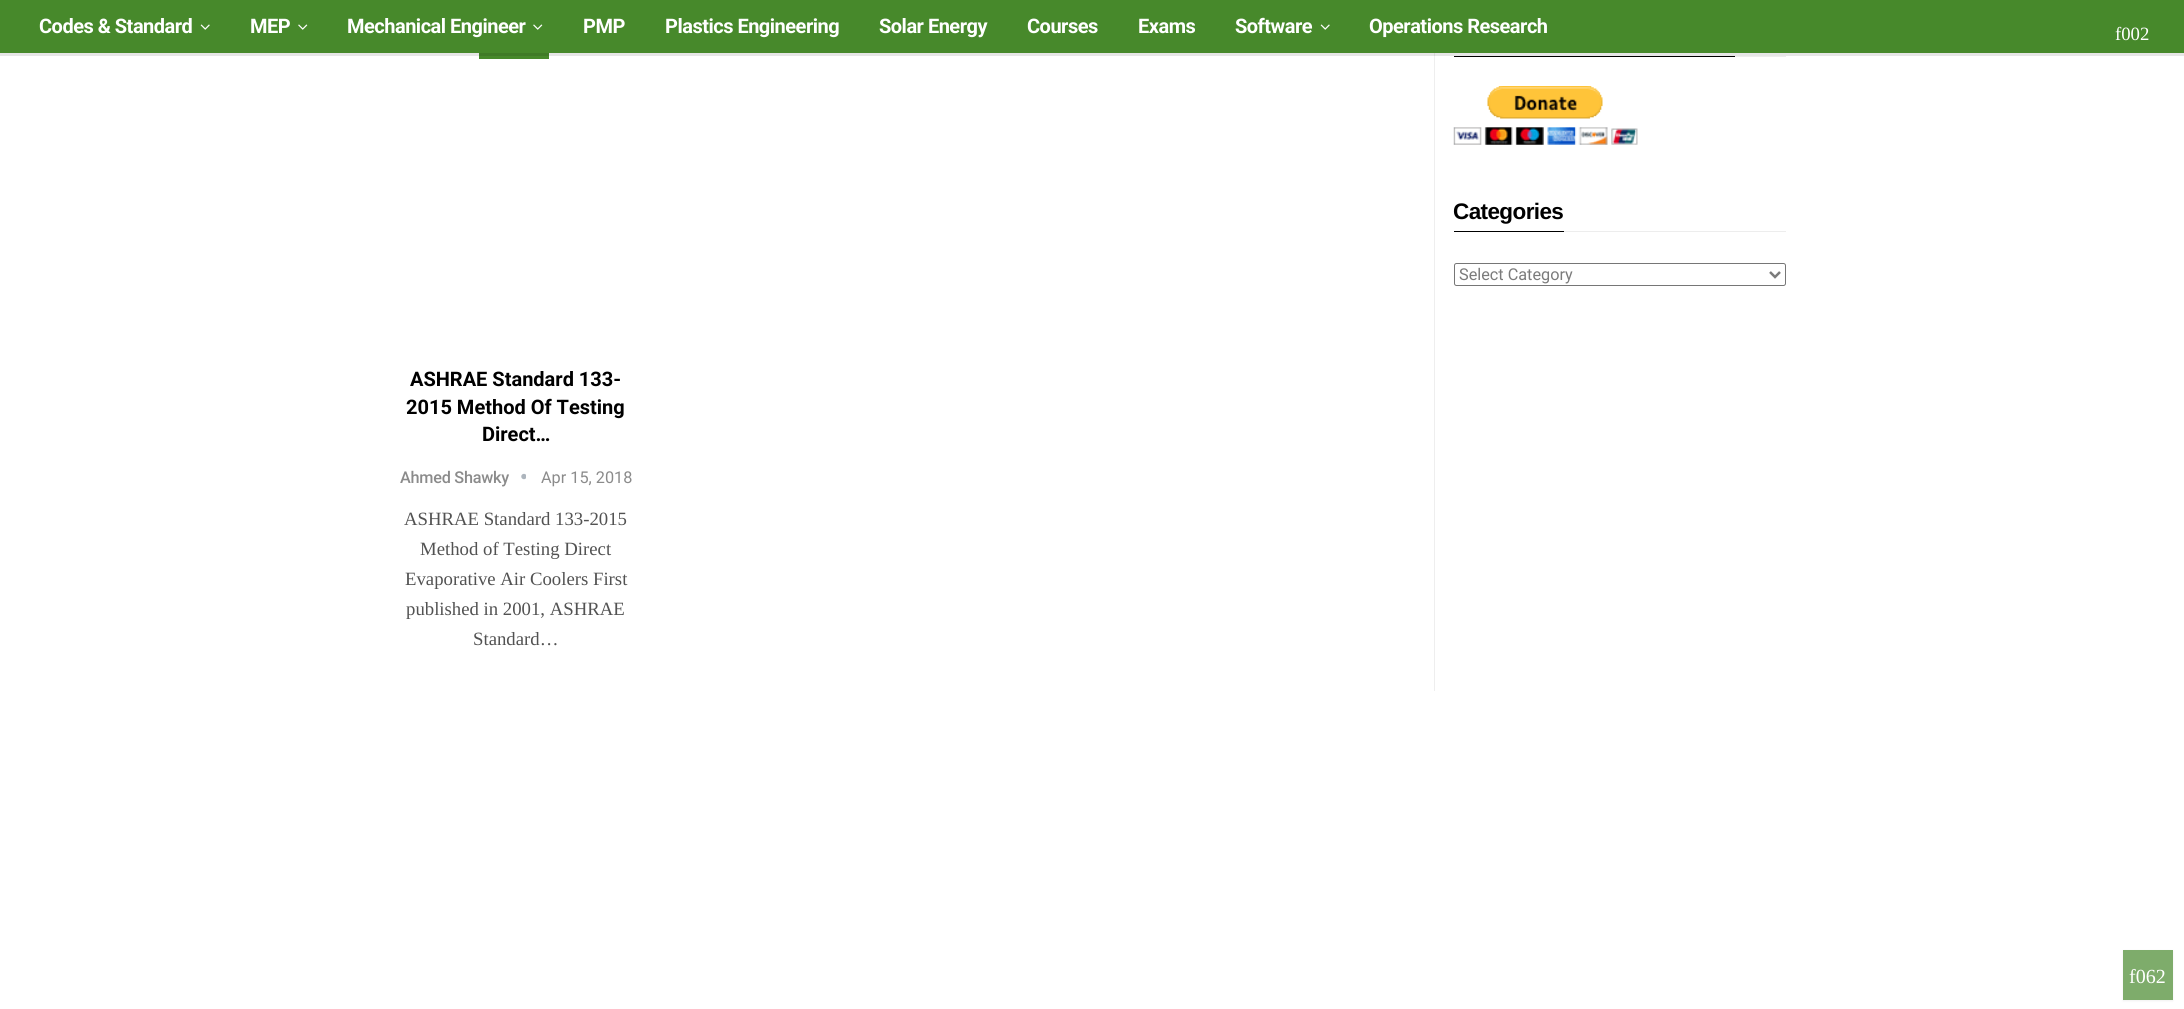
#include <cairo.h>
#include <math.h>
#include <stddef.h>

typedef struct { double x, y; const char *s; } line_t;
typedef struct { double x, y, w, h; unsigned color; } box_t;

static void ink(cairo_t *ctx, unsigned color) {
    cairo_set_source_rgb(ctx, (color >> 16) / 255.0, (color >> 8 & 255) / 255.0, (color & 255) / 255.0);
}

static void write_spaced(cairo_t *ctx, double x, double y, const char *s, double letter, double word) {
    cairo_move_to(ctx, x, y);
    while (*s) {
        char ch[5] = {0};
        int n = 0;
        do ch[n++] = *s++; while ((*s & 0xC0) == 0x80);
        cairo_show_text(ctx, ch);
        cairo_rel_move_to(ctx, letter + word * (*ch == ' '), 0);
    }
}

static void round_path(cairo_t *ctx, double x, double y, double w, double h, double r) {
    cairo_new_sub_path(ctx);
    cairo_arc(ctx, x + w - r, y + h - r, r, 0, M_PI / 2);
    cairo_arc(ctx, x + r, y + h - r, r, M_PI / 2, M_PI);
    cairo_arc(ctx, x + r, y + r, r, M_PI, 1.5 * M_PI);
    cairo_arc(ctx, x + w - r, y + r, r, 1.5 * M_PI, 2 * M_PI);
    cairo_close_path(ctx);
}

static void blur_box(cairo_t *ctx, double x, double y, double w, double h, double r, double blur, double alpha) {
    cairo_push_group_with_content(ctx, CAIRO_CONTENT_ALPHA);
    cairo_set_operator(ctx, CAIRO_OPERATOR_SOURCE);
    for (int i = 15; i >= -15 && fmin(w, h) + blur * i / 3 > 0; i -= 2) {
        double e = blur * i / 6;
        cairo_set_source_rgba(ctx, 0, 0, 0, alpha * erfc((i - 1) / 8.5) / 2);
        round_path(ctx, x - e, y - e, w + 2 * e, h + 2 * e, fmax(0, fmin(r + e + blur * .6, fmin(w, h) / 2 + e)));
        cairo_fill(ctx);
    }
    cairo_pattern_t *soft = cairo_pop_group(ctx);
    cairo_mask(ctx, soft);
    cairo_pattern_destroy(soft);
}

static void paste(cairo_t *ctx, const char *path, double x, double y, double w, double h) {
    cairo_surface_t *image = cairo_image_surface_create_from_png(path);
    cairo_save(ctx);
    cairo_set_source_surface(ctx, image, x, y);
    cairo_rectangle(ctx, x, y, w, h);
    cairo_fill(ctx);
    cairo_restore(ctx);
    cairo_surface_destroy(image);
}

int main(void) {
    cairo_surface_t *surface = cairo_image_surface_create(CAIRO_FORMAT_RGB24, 2184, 1009);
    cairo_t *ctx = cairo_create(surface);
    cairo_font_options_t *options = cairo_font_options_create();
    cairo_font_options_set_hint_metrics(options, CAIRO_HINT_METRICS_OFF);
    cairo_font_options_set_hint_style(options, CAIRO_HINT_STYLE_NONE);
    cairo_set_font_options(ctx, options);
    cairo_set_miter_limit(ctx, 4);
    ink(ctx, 0xFFFFFF);
    cairo_paint(ctx);
    {
        static const box_t items[] = {
            {0, 53, 2184, 3, 0xE6E6E6},
            {1434, 52, 1, 4, 0xD6D6D6},
            {0, 0, 2184, 53, 0x47892B},
        };
        for (size_t i = 0; i < sizeof items / sizeof *items; i++) {
            ink(ctx, items[i].color);
            cairo_rectangle(ctx, items[i].x, items[i].y, items[i].w, items[i].h);
            cairo_fill(ctx);
        }
    }
    cairo_select_font_face(ctx, "Roboto", CAIRO_FONT_SLANT_NORMAL, CAIRO_FONT_WEIGHT_BOLD);
    cairo_set_font_size(ctx, 20);
    ink(ctx, 0xFFFFFF);
    write_spaced(ctx, 39, 33, "Codes & Standard", -0.5, 0);
    paste(ctx, "media/1.png", 200, 24, 10, 6);
    write_spaced(ctx, 250, 33, "MEP", -0.5, 0);
    paste(ctx, "media/2.png", 298, 24, 10, 6);
    write_spaced(ctx, 347, 33, "Mechanical Engineer", -0.5, 0);
    paste(ctx, "media/2.png", 533, 24, 10, 6);
    {
        static const line_t items[] = {
            {583, 33, "PMP"},
            {665, 33, "Plastics Engineering"},
            {879, 33, "Solar Energy"},
            {1027, 33, "Courses"},
            {1138, 33, "Exams"},
            {1235, 33, "Software"},
        };
        for (size_t i = 0; i < sizeof items / sizeof *items; i++) {
            write_spaced(ctx, items[i].x, items[i].y, items[i].s, -0.5, 0);
        }
    }
    paste(ctx, "media/1.png", 1320, 24, 10, 6);
    write_spaced(ctx, 1369, 33, "Operations Research", -0.5, 0);
    cairo_select_font_face(ctx, "Liberation Serif", CAIRO_FONT_SLANT_NORMAL, CAIRO_FONT_WEIGHT_NORMAL);
    cairo_set_font_size(ctx, 18.75);
    cairo_move_to(ctx, 2115, 40);
    cairo_show_text(ctx, "f002");
    ink(ctx, 0x000000);
    cairo_rectangle(ctx, 1454, 56, 281, 1);
    cairo_fill(ctx);
    ink(ctx, 0xEDEDED);
    cairo_rectangle(ctx, 1735, 56, 51, 1);
    cairo_fill(ctx);
    paste(ctx, "media/3.png", 1453, 86, 185, 59);
    cairo_select_font_face(ctx, "Liberation Sans", CAIRO_FONT_SLANT_NORMAL, CAIRO_FONT_WEIGHT_BOLD);
    cairo_set_font_size(ctx, 22.5);
    ink(ctx, 0x000000);
    write_spaced(ctx, 1453, 219, "Categories", -0.6, 0);
    cairo_rectangle(ctx, 1454, 231, 110, 1);
    cairo_fill(ctx);
    ink(ctx, 0xEDEDED);
    cairo_rectangle(ctx, 1564, 231, 222, 1);
    cairo_fill(ctx);
    round_path(ctx, 1454.5, 263.5, 331, 22, 2);
    ink(ctx, 0x767676);
    cairo_set_line_width(ctx, 1);
    cairo_stroke(ctx);
    cairo_new_path(ctx);
    cairo_move_to(ctx, 1770, 272);
    cairo_line_to(ctx, 1775, 277);
    cairo_line_to(ctx, 1780, 272);
    ink(ctx, 0x7B7B7B);
    cairo_set_line_width(ctx, 2.5);
    cairo_stroke(ctx);
    cairo_select_font_face(ctx, "Roboto", CAIRO_FONT_SLANT_NORMAL, CAIRO_FONT_WEIGHT_NORMAL);
    cairo_set_font_size(ctx, 16.25);
    cairo_move_to(ctx, 1459, 280);
    cairo_show_text(ctx, "Select Category");
    {
        static const box_t items[] = {
            {1434, 56, 1, 635, 0xEEEEEE},
            {479, 56, 70, 3, 0x47892B},
            {479, 53, 70, 3, 0x407B27},
        };
        for (size_t i = 0; i < sizeof items / sizeof *items; i++) {
            ink(ctx, items[i].color);
            cairo_rectangle(ctx, items[i].x, items[i].y, items[i].w, items[i].h);
            cairo_fill(ctx);
        }
    }
    cairo_select_font_face(ctx, "Roboto", CAIRO_FONT_SLANT_NORMAL, CAIRO_FONT_WEIGHT_BOLD);
    cairo_set_font_size(ctx, 20);
    ink(ctx, 0x000000);
    {
        static const line_t items[] = {
            {410, 386, "ASHRAE Standard 133-"},
            {406, 414, "2015 Method Of Testing"},
            {482, 441, "Direct…"},
        };
        for (size_t i = 0; i < sizeof items / sizeof *items; i++) {
            cairo_move_to(ctx, items[i].x, items[i].y);
            cairo_show_text(ctx, items[i].s);
        }
    }
    cairo_select_font_face(ctx, "Roboto Medium", CAIRO_FONT_SLANT_NORMAL, CAIRO_FONT_WEIGHT_NORMAL);
    cairo_set_font_size(ctx, 16.25);
    ink(ctx, 0x8B8B8B);
    write_spaced(ctx, 400, 483, "Ahmed Shawky", -0.25, 0);
    paste(ctx, "media/4.png", 521, 473, 5, 7);
    cairo_select_font_face(ctx, "Roboto", CAIRO_FONT_SLANT_NORMAL, CAIRO_FONT_WEIGHT_NORMAL);
    cairo_move_to(ctx, 541, 483);
    cairo_show_text(ctx, "Apr 15, 2018");
    cairo_select_font_face(ctx, "Liberation Serif", CAIRO_FONT_SLANT_NORMAL, CAIRO_FONT_WEIGHT_NORMAL);
    cairo_set_font_size(ctx, 18.75);
    ink(ctx, 0x525252);
    {
        static const line_t items[] = {
            {404, 525, "ASHRAE Standard 133-2015"},
            {420, 555, "Method of Testing Direct"},
            {405, 585, "Evaporative Air Coolers First"},
            {406, 615, "published in 2001, ASHRAE"},
            {473, 645, "Standard…"},
        };
        for (size_t i = 0; i < sizeof items / sizeof *items; i++) {
            cairo_move_to(ctx, items[i].x, items[i].y);
            cairo_show_text(ctx, items[i].s);
        }
    }
    ink(ctx, 0x4D4D4D);
    blur_box(ctx, 2123, 951, 50, 50, 0, 1, 0.09);
    ink(ctx, 0x7EAC6B);
    cairo_rectangle(ctx, 2123, 950, 50, 50);
    cairo_fill(ctx);
    cairo_set_font_size(ctx, 20);
    ink(ctx, 0xFFFFFF);
    cairo_move_to(ctx, 2129, 983);
    cairo_show_text(ctx, "f062");
    cairo_surface_write_to_png(surface, "image.png");
    cairo_font_options_destroy(options);
    cairo_destroy(ctx);
    cairo_surface_destroy(surface);
    return 0;
}
